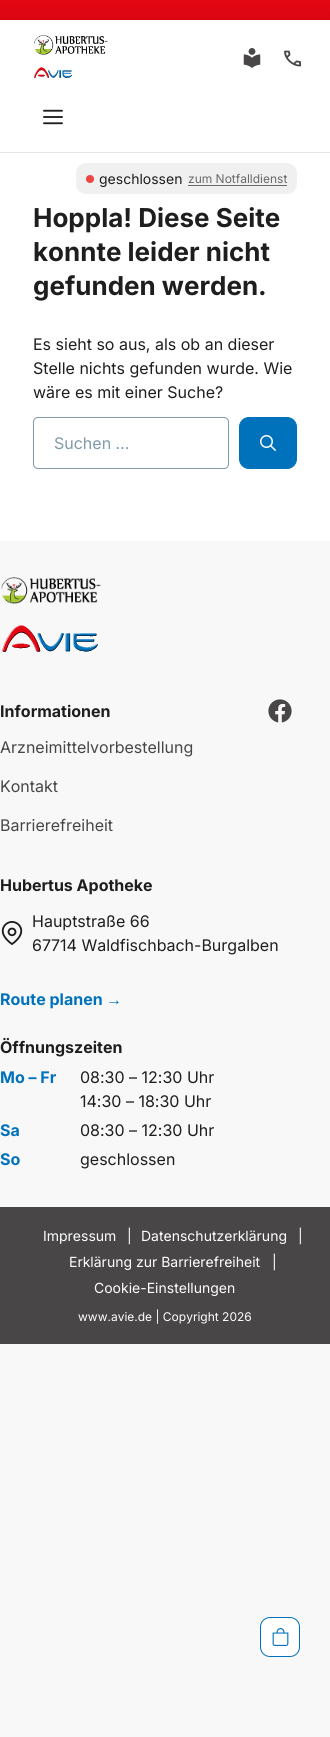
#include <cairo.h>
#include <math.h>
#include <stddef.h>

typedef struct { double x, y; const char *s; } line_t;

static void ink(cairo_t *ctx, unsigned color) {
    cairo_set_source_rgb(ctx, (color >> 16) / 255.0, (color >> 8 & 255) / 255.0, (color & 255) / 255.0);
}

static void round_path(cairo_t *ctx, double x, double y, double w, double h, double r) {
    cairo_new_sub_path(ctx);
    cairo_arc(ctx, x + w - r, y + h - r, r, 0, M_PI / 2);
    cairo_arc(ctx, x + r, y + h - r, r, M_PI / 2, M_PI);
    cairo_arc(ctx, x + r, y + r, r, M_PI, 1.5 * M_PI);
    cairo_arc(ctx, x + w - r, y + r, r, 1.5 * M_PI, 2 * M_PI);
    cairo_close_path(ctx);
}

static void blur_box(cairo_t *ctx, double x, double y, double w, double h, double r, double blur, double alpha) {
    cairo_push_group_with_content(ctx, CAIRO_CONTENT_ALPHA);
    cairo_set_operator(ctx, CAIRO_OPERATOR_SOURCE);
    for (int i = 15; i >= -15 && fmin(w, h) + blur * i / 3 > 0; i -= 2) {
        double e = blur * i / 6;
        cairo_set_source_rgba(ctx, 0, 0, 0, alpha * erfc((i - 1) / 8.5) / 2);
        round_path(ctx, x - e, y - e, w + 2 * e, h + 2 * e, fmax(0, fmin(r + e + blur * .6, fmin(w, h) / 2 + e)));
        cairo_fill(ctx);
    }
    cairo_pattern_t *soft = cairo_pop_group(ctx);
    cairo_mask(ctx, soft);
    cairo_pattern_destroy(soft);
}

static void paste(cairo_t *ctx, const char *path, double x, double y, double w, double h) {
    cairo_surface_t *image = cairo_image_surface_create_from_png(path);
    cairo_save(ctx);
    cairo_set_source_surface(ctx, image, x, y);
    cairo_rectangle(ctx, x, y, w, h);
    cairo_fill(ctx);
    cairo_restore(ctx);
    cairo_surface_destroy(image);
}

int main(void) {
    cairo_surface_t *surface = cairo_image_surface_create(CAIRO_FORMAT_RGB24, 330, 1737);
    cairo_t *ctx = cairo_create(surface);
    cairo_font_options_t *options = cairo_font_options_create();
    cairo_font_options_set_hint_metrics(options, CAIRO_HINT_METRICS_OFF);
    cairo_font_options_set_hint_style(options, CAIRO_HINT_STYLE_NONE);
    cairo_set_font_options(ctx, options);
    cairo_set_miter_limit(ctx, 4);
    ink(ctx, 0xF8F8F8);
    cairo_paint(ctx);
    ink(ctx, 0xE30613);
    cairo_rectangle(ctx, 0, 0, 330, 20);
    cairo_fill(ctx);
    ink(ctx, 0x000000);
    blur_box(ctx, 0, 21, 330, 133, 0, 10, 0.1);
    ink(ctx, 0xFFFFFF);
    cairo_rectangle(ctx, 0, 20, 330, 132);
    cairo_fill(ctx);
    ink(ctx, 0xE6E6E6);
    cairo_rectangle(ctx, 0, 152, 330, 1);
    cairo_fill(ctx);
    paste(ctx, "media/1.png", 34, 35, 74, 20);
    paste(ctx, "media/2.png", 33, 67, 39, 11);
    paste(ctx, "media/3.png", 243, 48, 18, 20);
    paste(ctx, "media/4.png", 284, 50, 18, 17);
    paste(ctx, "media/5.png", 43, 109, 20, 16);
    ink(ctx, 0xFFFFFF);
    cairo_rectangle(ctx, 0, 153, 330, 388);
    cairo_fill(ctx);
    ink(ctx, 0xF0F0F0);
    round_path(ctx, 76, 163, 221, 31, 10);
    cairo_fill(ctx);
    ink(ctx, 0xEF4444);
    cairo_arc(ctx, 90, 179, 4, 0, 2 * M_PI);
    cairo_fill(ctx);
    cairo_select_font_face(ctx, "Inter", CAIRO_FONT_SLANT_NORMAL, CAIRO_FONT_WEIGHT_NORMAL);
    cairo_set_font_size(ctx, 14);
    ink(ctx, 0x1E1E1E);
    cairo_move_to(ctx, 99, 184);
    cairo_show_text(ctx, "geschlossen");
    cairo_set_font_size(ctx, 12);
    ink(ctx, 0x6A6869);
    cairo_move_to(ctx, 188, 183);
    cairo_show_text(ctx, "zum Notfalldienst");
    cairo_rectangle(ctx, 188, 185, 99, 1);
    cairo_fill(ctx);
    cairo_select_font_face(ctx, "Inter", CAIRO_FONT_SLANT_NORMAL, CAIRO_FONT_WEIGHT_BOLD);
    cairo_set_font_size(ctx, 26);
    ink(ctx, 0x1E1E1E);
    {
        static const line_t items[] = {
            {33, 227, "Hoppla! Diese Seite"},
            {33, 261, "konnte leider nicht"},
            {33, 295, "gefunden werden."},
        };
        for (size_t i = 0; i < sizeof items / sizeof *items; i++) {
            cairo_move_to(ctx, items[i].x, items[i].y);
            cairo_show_text(ctx, items[i].s);
        }
    }
    cairo_select_font_face(ctx, "Inter", CAIRO_FONT_SLANT_NORMAL, CAIRO_FONT_WEIGHT_NORMAL);
    cairo_set_font_size(ctx, 16);
    {
        static const line_t items[] = {
            {33, 350, "Es sieht so aus, als ob an dieser"},
            {33, 374, "Stelle nichts gefunden wurde. Wie"},
            {33, 398, "wäre es mit einer Suche?"},
        };
        for (size_t i = 0; i < sizeof items / sizeof *items; i++) {
            cairo_move_to(ctx, items[i].x, items[i].y);
            cairo_show_text(ctx, items[i].s);
        }
    }
    round_path(ctx, 33.5, 417.5, 195, 51, 4.5);
    ink(ctx, 0x809AA9);
    cairo_set_line_width(ctx, 1);
    cairo_stroke(ctx);
    cairo_move_to(ctx, 54, 449);
    cairo_show_text(ctx, "Suchen …");
    ink(ctx, 0x0072BB);
    round_path(ctx, 239.5, 417.5, 57, 51, 9.5);
    cairo_fill_preserve(ctx);
    cairo_stroke(ctx);
    paste(ctx, "media/6.png", 260, 435, 16, 16);
    paste(ctx, "media/7.png", 1, 577, 100, 27);
    paste(ctx, "media/8.png", 2, 625, 96, 27);
    cairo_select_font_face(ctx, "Inter", CAIRO_FONT_SLANT_NORMAL, CAIRO_FONT_WEIGHT_BOLD);
    ink(ctx, 0x1E1E1E);
    cairo_move_to(ctx, 0, 717);
    cairo_show_text(ctx, "Informationen");
    cairo_select_font_face(ctx, "Inter", CAIRO_FONT_SLANT_NORMAL, CAIRO_FONT_WEIGHT_NORMAL);
    ink(ctx, 0x484647);
    {
        static const line_t items[] = {
            {0, 753, "Arzneimittelvorbestellung"},
            {0, 792, "Kontakt"},
            {0, 831, "Barrierefreiheit"},
        };
        for (size_t i = 0; i < sizeof items / sizeof *items; i++) {
            cairo_move_to(ctx, items[i].x, items[i].y);
            cairo_show_text(ctx, items[i].s);
        }
    }
    paste(ctx, "media/9.png", 268, 699, 24, 24);
    cairo_select_font_face(ctx, "Inter", CAIRO_FONT_SLANT_NORMAL, CAIRO_FONT_WEIGHT_BOLD);
    ink(ctx, 0x1E1E1E);
    cairo_move_to(ctx, 0, 891);
    cairo_show_text(ctx, "Hubertus Apotheke");
    paste(ctx, "media/10.png", 1, 921, 22, 24);
    cairo_select_font_face(ctx, "Inter", CAIRO_FONT_SLANT_NORMAL, CAIRO_FONT_WEIGHT_NORMAL);
    cairo_move_to(ctx, 32, 927);
    cairo_show_text(ctx, "Hauptstraße 66");
    cairo_move_to(ctx, 32, 951);
    cairo_show_text(ctx, "67714 Waldfischbach-Burgalben");
    cairo_select_font_face(ctx, "Inter", CAIRO_FONT_SLANT_NORMAL, CAIRO_FONT_WEIGHT_BOLD);
    ink(ctx, 0x0072BB);
    cairo_move_to(ctx, 0, 1005);
    cairo_show_text(ctx, "Route planen");
    cairo_select_font_face(ctx, "Liberation Sans", CAIRO_FONT_SLANT_NORMAL, CAIRO_FONT_WEIGHT_BOLD);
    cairo_move_to(ctx, 106, 1005);
    cairo_show_text(ctx, "→");
    cairo_select_font_face(ctx, "Inter", CAIRO_FONT_SLANT_NORMAL, CAIRO_FONT_WEIGHT_BOLD);
    ink(ctx, 0x1E1E1E);
    cairo_move_to(ctx, 0, 1053);
    cairo_show_text(ctx, "Öffnungszeiten");
    ink(ctx, 0x0072BB);
    cairo_move_to(ctx, 0, 1083);
    cairo_show_text(ctx, "Mo – Fr");
    cairo_select_font_face(ctx, "Inter", CAIRO_FONT_SLANT_NORMAL, CAIRO_FONT_WEIGHT_NORMAL);
    ink(ctx, 0x1E1E1E);
    cairo_move_to(ctx, 80, 1083);
    cairo_show_text(ctx, "08:30 – 12:30 Uhr");
    cairo_move_to(ctx, 80, 1107);
    cairo_show_text(ctx, "14:30 – 18:30 Uhr");
    cairo_select_font_face(ctx, "Inter", CAIRO_FONT_SLANT_NORMAL, CAIRO_FONT_WEIGHT_BOLD);
    ink(ctx, 0x0072BB);
    cairo_move_to(ctx, 0, 1136);
    cairo_show_text(ctx, "Sa");
    cairo_select_font_face(ctx, "Inter", CAIRO_FONT_SLANT_NORMAL, CAIRO_FONT_WEIGHT_NORMAL);
    ink(ctx, 0x1E1E1E);
    cairo_move_to(ctx, 80, 1136);
    cairo_show_text(ctx, "08:30 – 12:30 Uhr");
    cairo_select_font_face(ctx, "Inter", CAIRO_FONT_SLANT_NORMAL, CAIRO_FONT_WEIGHT_BOLD);
    ink(ctx, 0x0072BB);
    cairo_move_to(ctx, 0, 1165);
    cairo_show_text(ctx, "So");
    cairo_select_font_face(ctx, "Inter", CAIRO_FONT_SLANT_NORMAL, CAIRO_FONT_WEIGHT_NORMAL);
    ink(ctx, 0x1E1E1E);
    cairo_move_to(ctx, 80, 1165);
    cairo_show_text(ctx, "geschlossen");
    ink(ctx, 0x484647);
    cairo_rectangle(ctx, 0, 1207, 330, 137);
    cairo_fill(ctx);
    cairo_set_font_size(ctx, 14);
    ink(ctx, 0xFFFFFF);
    {
        static const line_t items[] = {
            {43, 1241, "Impressum"},
            {127, 1241, "|"},
            {141, 1241, "Datenschutzerklärung"},
            {298, 1241, "|"},
            {69, 1267, "Erklärung zur Barrierefreiheit"},
            {272, 1267, "|"},
            {94, 1293, "Cookie-Einstellungen"},
        };
        for (size_t i = 0; i < sizeof items / sizeof *items; i++) {
            cairo_move_to(ctx, items[i].x, items[i].y);
            cairo_show_text(ctx, items[i].s);
        }
    }
    cairo_set_font_size(ctx, 12);
    cairo_move_to(ctx, 78, 1321);
    cairo_show_text(ctx, "www.avie.de | Copyright 2026");
    round_path(ctx, 260.5, 1617.5, 39, 39, 9.5);
    cairo_fill_preserve(ctx);
    ink(ctx, 0x0072BB);
    cairo_stroke(ctx);
    paste(ctx, "media/11.png", 272, 1628, 17, 18);
    cairo_surface_write_to_png(surface, "image.png");
    cairo_font_options_destroy(options);
    cairo_destroy(ctx);
    cairo_surface_destroy(surface);
    return 0;
}
